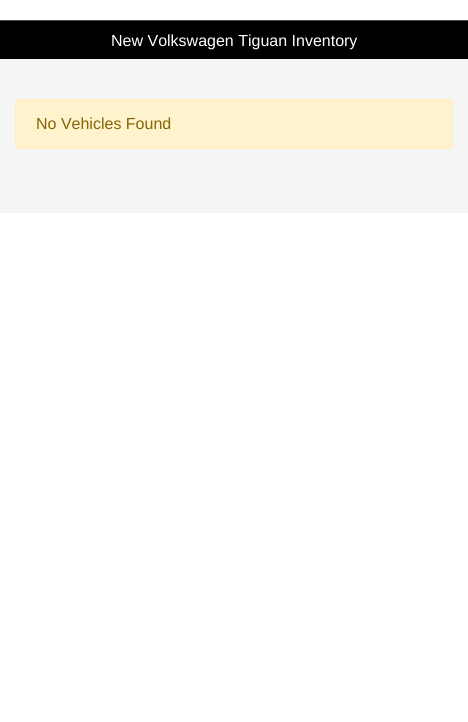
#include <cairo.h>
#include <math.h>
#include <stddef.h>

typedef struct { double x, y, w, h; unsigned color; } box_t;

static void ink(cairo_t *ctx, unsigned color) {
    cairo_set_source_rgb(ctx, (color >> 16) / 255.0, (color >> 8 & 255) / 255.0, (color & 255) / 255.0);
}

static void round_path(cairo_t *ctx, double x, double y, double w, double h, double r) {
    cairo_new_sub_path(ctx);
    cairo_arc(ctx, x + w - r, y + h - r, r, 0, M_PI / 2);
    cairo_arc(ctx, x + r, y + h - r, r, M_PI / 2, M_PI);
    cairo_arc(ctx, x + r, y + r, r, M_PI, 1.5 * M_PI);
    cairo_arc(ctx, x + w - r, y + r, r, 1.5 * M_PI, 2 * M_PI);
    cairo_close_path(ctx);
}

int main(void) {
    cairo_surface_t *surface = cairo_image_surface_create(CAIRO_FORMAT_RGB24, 468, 722);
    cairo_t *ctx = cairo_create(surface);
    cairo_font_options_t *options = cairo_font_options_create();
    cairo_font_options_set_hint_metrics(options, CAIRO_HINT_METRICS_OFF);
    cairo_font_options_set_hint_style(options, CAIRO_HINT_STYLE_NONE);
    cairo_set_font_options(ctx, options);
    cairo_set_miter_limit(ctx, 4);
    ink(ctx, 0xFFFFFF);
    cairo_paint(ctx);
    {
        static const box_t items[] = {
            {0, 59, 468, 154, 0xF5F5F5},
            {0, 21, 468, 38, 0x000000},
            {0, 20, 468, 1, 0x484545},
        };
        for (size_t i = 0; i < sizeof items / sizeof *items; i++) {
            ink(ctx, items[i].color);
            cairo_rectangle(ctx, items[i].x, items[i].y, items[i].w, items[i].h);
            cairo_fill(ctx);
        }
    }
    cairo_select_font_face(ctx, "Liberation Sans", CAIRO_FONT_SLANT_NORMAL, CAIRO_FONT_WEIGHT_NORMAL);
    cairo_set_font_size(ctx, 16);
    ink(ctx, 0xFFFFFF);
    cairo_move_to(ctx, 111, 46);
    cairo_show_text(ctx, "New Volkswagen Tiguan Inventory");
    ink(ctx, 0xFFF3CD);
    round_path(ctx, 15.5, 99.5, 437, 49, 3.5);
    cairo_fill_preserve(ctx);
    ink(ctx, 0xFFEEBA);
    cairo_set_line_width(ctx, 1);
    cairo_stroke(ctx);
    ink(ctx, 0x856404);
    cairo_move_to(ctx, 36, 129);
    cairo_show_text(ctx, "No Vehicles Found");
    cairo_surface_write_to_png(surface, "image.png");
    cairo_font_options_destroy(options);
    cairo_destroy(ctx);
    cairo_surface_destroy(surface);
    return 0;
}
